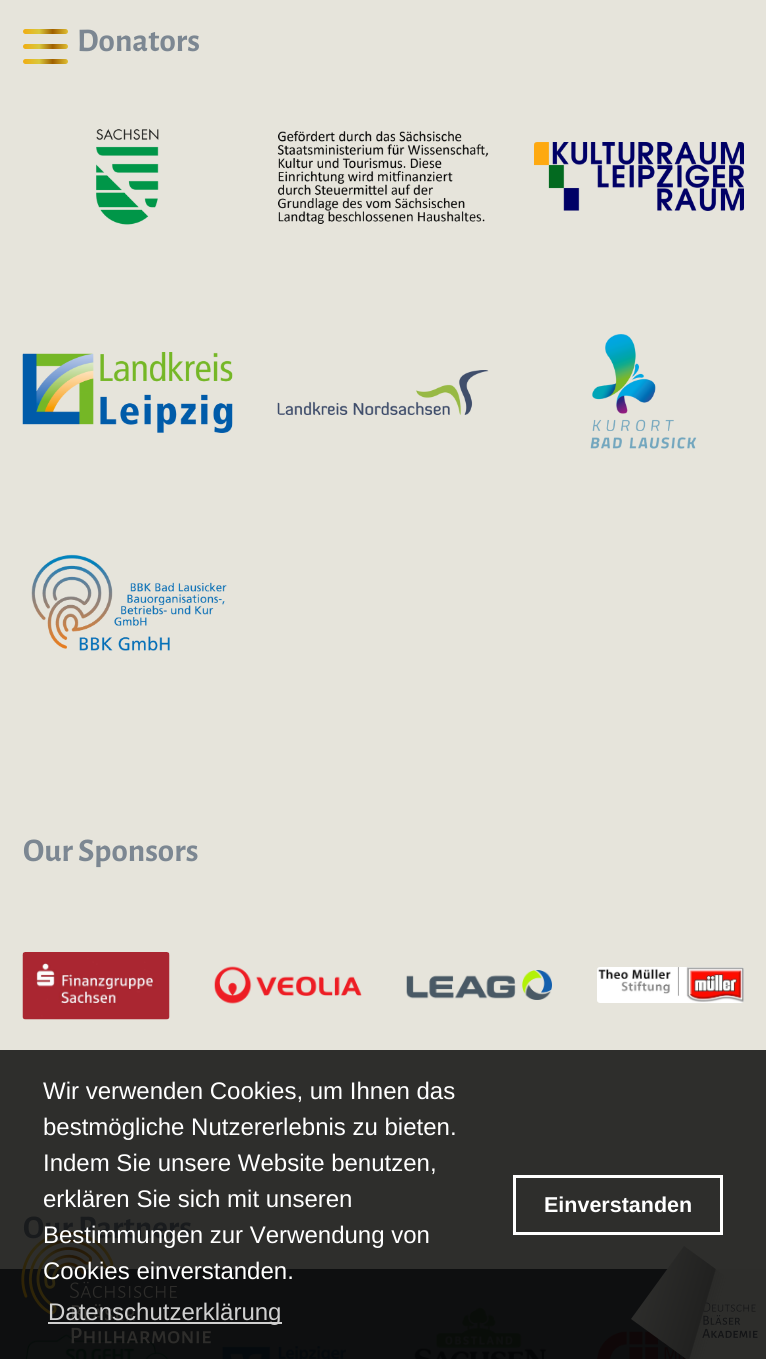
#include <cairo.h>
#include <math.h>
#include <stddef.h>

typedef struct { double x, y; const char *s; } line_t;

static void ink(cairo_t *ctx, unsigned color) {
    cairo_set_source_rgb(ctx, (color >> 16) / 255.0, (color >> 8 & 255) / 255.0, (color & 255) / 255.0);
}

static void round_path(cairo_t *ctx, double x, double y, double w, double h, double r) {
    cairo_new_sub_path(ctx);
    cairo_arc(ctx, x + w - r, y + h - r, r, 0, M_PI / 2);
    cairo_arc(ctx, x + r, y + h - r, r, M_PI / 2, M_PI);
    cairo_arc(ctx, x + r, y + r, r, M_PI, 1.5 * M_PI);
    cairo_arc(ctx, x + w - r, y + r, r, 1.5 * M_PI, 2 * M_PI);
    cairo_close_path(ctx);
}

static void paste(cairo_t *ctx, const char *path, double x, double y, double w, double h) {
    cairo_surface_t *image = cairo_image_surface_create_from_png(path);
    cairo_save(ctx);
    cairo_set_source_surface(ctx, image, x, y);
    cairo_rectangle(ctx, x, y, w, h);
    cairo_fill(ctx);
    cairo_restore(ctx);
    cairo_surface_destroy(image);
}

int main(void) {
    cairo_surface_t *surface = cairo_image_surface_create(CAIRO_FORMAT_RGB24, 766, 1359);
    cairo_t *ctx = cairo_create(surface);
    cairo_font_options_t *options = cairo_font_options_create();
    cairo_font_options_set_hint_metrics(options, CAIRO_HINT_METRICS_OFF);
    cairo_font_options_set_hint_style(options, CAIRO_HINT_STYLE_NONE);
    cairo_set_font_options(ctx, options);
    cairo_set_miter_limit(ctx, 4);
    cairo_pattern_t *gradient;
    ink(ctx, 0xE6E4DB);
    cairo_paint(ctx);
    cairo_select_font_face(ctx, "Alegreya Sans", CAIRO_FONT_SLANT_NORMAL, CAIRO_FONT_WEIGHT_BOLD);
    cairo_set_font_size(ctx, 33);
    ink(ctx, 0x7C8792);
    cairo_move_to(ctx, 77, 51);
    cairo_show_text(ctx, "Donators");
    paste(ctx, "media/1.png", 96, 128, 63, 97);
    paste(ctx, "media/2.png", 277, 131, 212, 93);
    paste(ctx, "media/3.png", 534, 142, 210, 69);
    paste(ctx, "media/4.png", 22, 352, 211, 81);
    paste(ctx, "media/5.png", 277, 370, 212, 45);
    paste(ctx, "media/6.png", 590, 334, 107, 115);
    paste(ctx, "media/7.png", 31, 554, 196, 97);
    ink(ctx, 0x2E2E2C);
    cairo_rectangle(ctx, 0, 1050, 766, 219);
    cairo_fill(ctx);
    ink(ctx, 0x7C8792);
    cairo_move_to(ctx, 23, 861);
    cairo_show_text(ctx, "Our Sponsors");
    paste(ctx, "media/8.png", 22, 952, 148, 68);
    paste(ctx, "media/9.png", 214, 966, 148, 38);
    paste(ctx, "media/10.png", 406, 970, 146, 30);
    paste(ctx, "media/11.png", 597, 967, 147, 36);
    ink(ctx, 0x0E0F10);
    cairo_rectangle(ctx, 0, 1269, 687, 90);
    cairo_fill(ctx);
    ink(ctx, 0x191B1D);
    cairo_move_to(ctx, 23, 1238);
    cairo_show_text(ctx, "Our Partners");
    paste(ctx, "media/12.png", 25, 1334, 144, 25);
    paste(ctx, "media/13.png", 222, 1346, 124, 13);
    paste(ctx, "media/14.png", 414, 1307, 133, 52);
    paste(ctx, "media/15.png", 597, 1331, 90, 28);
    gradient = cairo_pattern_create_linear(23, 31, 68, 31);
    cairo_pattern_add_color_stop_rgba(gradient, 0, 0.941, 0.678, 0.071, 1);
    cairo_pattern_add_color_stop_rgba(gradient, 0.36, 0.851, 0.784, 0.239, 1);
    cairo_pattern_add_color_stop_rgba(gradient, 0.66, 0.627, 0.376, 0, 1);
    cairo_pattern_add_color_stop_rgba(gradient, 1, 0.878, 0.749, 0.2, 1);
    cairo_set_source(ctx, gradient);
    cairo_pattern_destroy(gradient);
    round_path(ctx, 23, 29, 45, 5, 2.5);
    cairo_fill(ctx);
    gradient = cairo_pattern_create_linear(23, 46, 68, 46);
    cairo_pattern_add_color_stop_rgba(gradient, 0, 0.941, 0.678, 0.071, 1);
    cairo_pattern_add_color_stop_rgba(gradient, 0.36, 0.851, 0.784, 0.239, 1);
    cairo_pattern_add_color_stop_rgba(gradient, 0.66, 0.627, 0.376, 0, 1);
    cairo_pattern_add_color_stop_rgba(gradient, 1, 0.878, 0.749, 0.2, 1);
    cairo_set_source(ctx, gradient);
    cairo_pattern_destroy(gradient);
    round_path(ctx, 23, 44, 45, 5, 2.5);
    cairo_fill(ctx);
    gradient = cairo_pattern_create_linear(23, 61, 68, 61);
    cairo_pattern_add_color_stop_rgba(gradient, 0, 0.941, 0.678, 0.071, 1);
    cairo_pattern_add_color_stop_rgba(gradient, 0.36, 0.851, 0.784, 0.239, 1);
    cairo_pattern_add_color_stop_rgba(gradient, 0.66, 0.627, 0.376, 0, 1);
    cairo_pattern_add_color_stop_rgba(gradient, 1, 0.878, 0.749, 0.2, 1);
    cairo_set_source(ctx, gradient);
    cairo_pattern_destroy(gradient);
    round_path(ctx, 23, 59, 45, 5, 2.5);
    cairo_fill(ctx);
    cairo_select_font_face(ctx, "Liberation Sans", CAIRO_FONT_SLANT_NORMAL, CAIRO_FONT_WEIGHT_NORMAL);
    cairo_set_font_size(ctx, 24);
    ink(ctx, 0xFFFFFF);
    {
        static const line_t items[] = {
            {43, 1099, "Wir verwenden Cookies, um Ihnen das"},
            {43, 1135, "bestmögliche Nutzererlebnis zu bieten."},
            {43, 1171, "Indem Sie unsere Website benutzen,"},
            {43, 1207, "erklären Sie sich mit unseren"},
        };
        for (size_t i = 0; i < sizeof items / sizeof *items; i++) {
            cairo_move_to(ctx, items[i].x, items[i].y);
            cairo_show_text(ctx, items[i].s);
        }
    }
    paste(ctx, "media/16.png", 21, 1232, 190, 112);
    cairo_move_to(ctx, 43, 1243);
    cairo_show_text(ctx, "Bestimmungen zur Verwendung von");
    cairo_move_to(ctx, 43, 1279);
    cairo_show_text(ctx, "Cookies einverstanden.");
    ink(ctx, 0xCFCFCF);
    cairo_rectangle(ctx, 48, 1322, 234, 2);
    cairo_fill(ctx);
    ink(ctx, 0xD0D0D0);
    cairo_move_to(ctx, 48, 1320);
    cairo_show_text(ctx, "Datenschutzerklärung");
    cairo_rectangle(ctx, 514.5, 1176.5, 207, 57);
    ink(ctx, 0xFFFFFF);
    cairo_set_line_width(ctx, 3);
    cairo_stroke(ctx);
    cairo_select_font_face(ctx, "Liberation Sans", CAIRO_FONT_SLANT_NORMAL, CAIRO_FONT_WEIGHT_BOLD);
    cairo_set_font_size(ctx, 21.5);
    cairo_move_to(ctx, 544, 1212);
    cairo_show_text(ctx, "Einverstanden");
    gradient = cairo_pattern_create_linear(676, 1288, 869, 1340);
    cairo_pattern_add_color_stop_rgba(gradient, 0.15, 0.176, 0.176, 0.169, 0);
    cairo_pattern_add_color_stop_rgba(gradient, 0.15, 0.176, 0.176, 0.169, 1);
    cairo_set_source(ctx, gradient);
    cairo_pattern_destroy(gradient);
    cairo_rectangle(ctx, 689, 1269, 77, 90);
    cairo_fill(ctx);
    paste(ctx, "media/17.png", 702, 1302, 56, 36);
    gradient = cairo_pattern_create_linear(757, 1329, 638, 1294);
    cairo_pattern_add_color_stop_rgba(gradient, 0.35, 0.122, 0.122, 0.118, 0);
    cairo_pattern_add_color_stop_rgba(gradient, 0.45, 0.122, 0.122, 0.118, 0.15);
    cairo_pattern_add_color_stop_rgba(gradient, 0.46, 0.129, 0.129, 0.125, 1);
    cairo_pattern_add_color_stop_rgba(gradient, 1, 0.176, 0.176, 0.169, 1);
    cairo_set_source(ctx, gradient);
    cairo_pattern_destroy(gradient);
    cairo_new_path(ctx);
    cairo_move_to(ctx, 684, 1246);
    cairo_line_to(ctx, 764, 1304);
    cairo_line_to(ctx, 711, 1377);
    cairo_line_to(ctx, 631, 1319);
    cairo_close_path(ctx);
    cairo_fill(ctx);
    cairo_surface_write_to_png(surface, "image.png");
    cairo_font_options_destroy(options);
    cairo_destroy(ctx);
    cairo_surface_destroy(surface);
    return 0;
}
